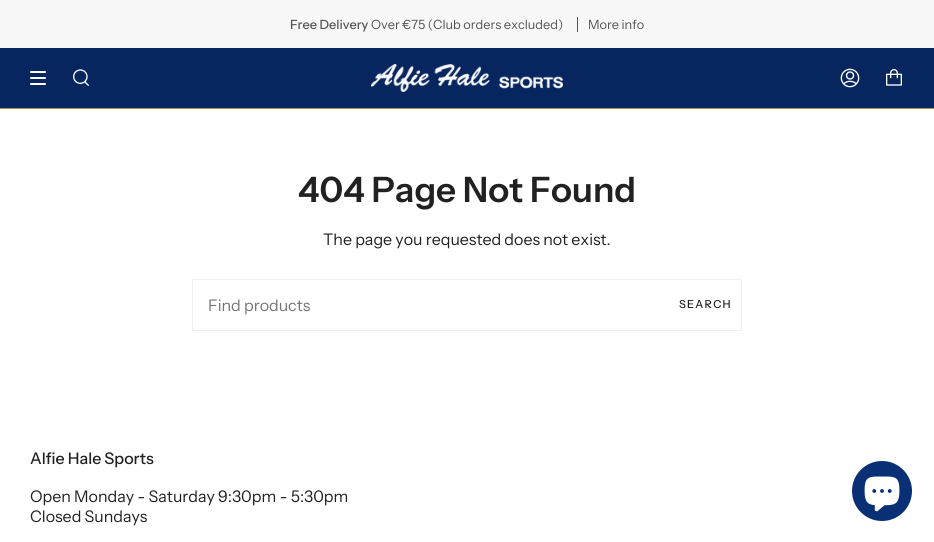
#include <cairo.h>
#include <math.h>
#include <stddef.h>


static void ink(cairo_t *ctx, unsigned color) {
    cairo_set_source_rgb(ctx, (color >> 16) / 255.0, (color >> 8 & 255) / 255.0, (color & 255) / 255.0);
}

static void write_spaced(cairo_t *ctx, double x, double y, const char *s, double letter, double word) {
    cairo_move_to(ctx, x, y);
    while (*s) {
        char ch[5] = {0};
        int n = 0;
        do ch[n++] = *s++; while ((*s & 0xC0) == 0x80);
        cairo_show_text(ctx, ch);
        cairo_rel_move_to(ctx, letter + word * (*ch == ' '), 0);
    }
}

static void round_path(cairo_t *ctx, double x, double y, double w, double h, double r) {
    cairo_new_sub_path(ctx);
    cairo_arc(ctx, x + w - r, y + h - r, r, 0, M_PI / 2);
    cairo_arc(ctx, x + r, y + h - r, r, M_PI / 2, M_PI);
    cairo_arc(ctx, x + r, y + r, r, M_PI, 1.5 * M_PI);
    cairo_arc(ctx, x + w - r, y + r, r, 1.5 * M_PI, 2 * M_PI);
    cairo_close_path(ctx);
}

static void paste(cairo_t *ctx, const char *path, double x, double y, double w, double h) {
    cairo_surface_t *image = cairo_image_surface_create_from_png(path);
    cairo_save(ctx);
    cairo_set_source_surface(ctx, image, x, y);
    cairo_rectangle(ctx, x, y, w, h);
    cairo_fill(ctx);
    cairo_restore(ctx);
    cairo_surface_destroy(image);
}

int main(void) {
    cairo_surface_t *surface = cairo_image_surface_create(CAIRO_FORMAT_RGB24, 934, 542);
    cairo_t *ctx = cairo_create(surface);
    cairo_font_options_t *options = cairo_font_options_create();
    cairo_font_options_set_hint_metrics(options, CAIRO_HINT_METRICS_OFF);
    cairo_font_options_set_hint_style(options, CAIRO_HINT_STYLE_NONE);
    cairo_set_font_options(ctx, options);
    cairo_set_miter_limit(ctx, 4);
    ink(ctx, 0xFFFFFF);
    cairo_paint(ctx);
    ink(ctx, 0xF7F7F7);
    cairo_rectangle(ctx, 0, 0, 934, 48);
    cairo_fill(ctx);
    cairo_select_font_face(ctx, "Instrument Sans Medium", CAIRO_FONT_SLANT_NORMAL, CAIRO_FONT_WEIGHT_NORMAL);
    cairo_set_font_size(ctx, 12.75);
    ink(ctx, 0x545454);
    cairo_move_to(ctx, 290, 29);
    cairo_show_text(ctx, "Free Delivery");
    cairo_select_font_face(ctx, "Instrument Sans", CAIRO_FONT_SLANT_NORMAL, CAIRO_FONT_WEIGHT_NORMAL);
    cairo_move_to(ctx, 371, 29);
    cairo_show_text(ctx, "Over €75 (Club orders excluded)");
    cairo_rectangle(ctx, 577, 17, 1, 15);
    cairo_fill(ctx);
    cairo_move_to(ctx, 588, 29);
    cairo_show_text(ctx, "More info");
    ink(ctx, 0xAB8C52);
    cairo_rectangle(ctx, 0, 108, 934, 1);
    cairo_fill(ctx);
    ink(ctx, 0x07265F);
    cairo_rectangle(ctx, 0, 48, 934, 60);
    cairo_fill(ctx);
    ink(ctx, 0xFFFFFF);
    round_path(ctx, 30, 71, 16, 2, 1);
    cairo_fill(ctx);
    round_path(ctx, 30, 77, 16, 2, 1);
    cairo_fill(ctx);
    round_path(ctx, 30, 83, 16, 2, 1);
    cairo_fill(ctx);
    paste(ctx, "media/1.png", 73, 69, 16, 17);
    paste(ctx, "media/2.png", 371, 64, 192, 28);
    paste(ctx, "media/3.png", 840, 68, 20, 20);
    paste(ctx, "media/4.png", 886, 69, 16, 17);
    cairo_select_font_face(ctx, "Instrument Sans SemiBold", CAIRO_FONT_SLANT_NORMAL, CAIRO_FONT_WEIGHT_NORMAL);
    cairo_set_font_size(ctx, 35);
    ink(ctx, 0x212121);
    cairo_move_to(ctx, 298, 202);
    cairo_show_text(ctx, "404 Page Not Found");
    cairo_select_font_face(ctx, "Instrument Sans", CAIRO_FONT_SLANT_NORMAL, CAIRO_FONT_WEIGHT_NORMAL);
    cairo_set_font_size(ctx, 16);
    cairo_move_to(ctx, 323, 245);
    cairo_show_text(ctx, "The page you requested does not exist.");
    cairo_rectangle(ctx, 192.5, 279.5, 549, 51);
    ink(ctx, 0xF0F0F0);
    cairo_set_line_width(ctx, 1);
    cairo_stroke(ctx);
    ink(ctx, 0x757575);
    cairo_move_to(ctx, 208, 311);
    cairo_show_text(ctx, "Find products");
    cairo_select_font_face(ctx, "Instrument Sans Medium", CAIRO_FONT_SLANT_NORMAL, CAIRO_FONT_WEIGHT_NORMAL);
    cairo_set_font_size(ctx, 11);
    ink(ctx, 0x212121);
    write_spaced(ctx, 679, 308, "SEARCH", 1.25, 0);
    cairo_set_font_size(ctx, 16);
    cairo_move_to(ctx, 30, 464);
    cairo_show_text(ctx, "Alfie Hale Sports");
    cairo_select_font_face(ctx, "Instrument Sans", CAIRO_FONT_SLANT_NORMAL, CAIRO_FONT_WEIGHT_NORMAL);
    cairo_move_to(ctx, 30, 502);
    cairo_show_text(ctx, "Open Monday - Saturday 9:30pm - 5:30pm");
    cairo_move_to(ctx, 30, 522);
    cairo_show_text(ctx, "Closed Sundays");
    ink(ctx, 0x092F75);
    cairo_new_path(ctx);
    cairo_arc(ctx, 882, 491, 30, 0, 2 * M_PI);
    cairo_fill(ctx);
    paste(ctx, "media/5.png", 864, 476, 36, 36);
    cairo_surface_write_to_png(surface, "image.png");
    cairo_font_options_destroy(options);
    cairo_destroy(ctx);
    cairo_surface_destroy(surface);
    return 0;
}
